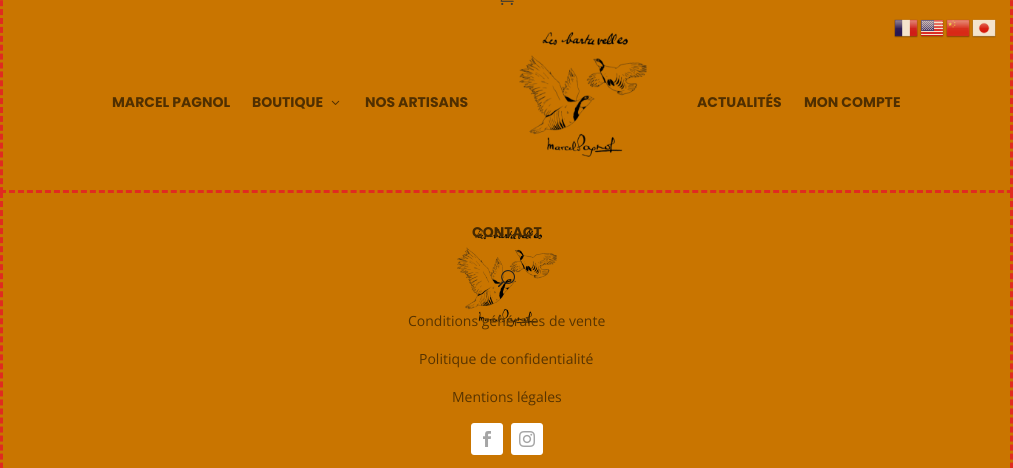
#include <cairo.h>
#include <math.h>
#include <stddef.h>

typedef struct { double x, y; const char *s; } line_t;

static void ink(cairo_t *ctx, unsigned color) {
    cairo_set_source_rgb(ctx, (color >> 16) / 255.0, (color >> 8 & 255) / 255.0, (color & 255) / 255.0);
}

static void round_path(cairo_t *ctx, double x, double y, double w, double h, double r) {
    cairo_new_sub_path(ctx);
    cairo_arc(ctx, x + w - r, y + h - r, r, 0, M_PI / 2);
    cairo_arc(ctx, x + r, y + h - r, r, M_PI / 2, M_PI);
    cairo_arc(ctx, x + r, y + r, r, M_PI, 1.5 * M_PI);
    cairo_arc(ctx, x + w - r, y + r, r, 1.5 * M_PI, 2 * M_PI);
    cairo_close_path(ctx);
}

static void paste(cairo_t *ctx, const char *path, double x, double y, double w, double h) {
    cairo_surface_t *image = cairo_image_surface_create_from_png(path);
    cairo_save(ctx);
    cairo_set_source_surface(ctx, image, x, y);
    cairo_rectangle(ctx, x, y, w, h);
    cairo_fill(ctx);
    cairo_restore(ctx);
    cairo_surface_destroy(image);
}

int main(void) {
    cairo_surface_t *surface = cairo_image_surface_create(CAIRO_FORMAT_RGB24, 1013, 468);
    cairo_t *ctx = cairo_create(surface);
    cairo_font_options_t *options = cairo_font_options_create();
    cairo_font_options_set_hint_metrics(options, CAIRO_HINT_METRICS_OFF);
    cairo_font_options_set_hint_style(options, CAIRO_HINT_STYLE_NONE);
    cairo_set_font_options(ctx, options);
    cairo_set_miter_limit(ctx, 4);
    ink(ctx, 0xC97500);
    cairo_paint(ctx);
    paste(ctx, "media/1.png", 894, 19, 24, 19);
    paste(ctx, "media/2.png", 920, 19, 24, 19);
    paste(ctx, "media/3.png", 946, 19, 24, 19);
    paste(ctx, "media/4.png", 972, 19, 24, 19);
    cairo_new_path(ctx);
    cairo_move_to(ctx, 1011.5, 183);
    cairo_line_to(ctx, 1011.5, 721);
    ink(ctx, 0xE02B20);
    cairo_set_line_width(ctx, 3);
    cairo_set_dash(ctx, (double[]){6, 3.02}, 2, 0);
    cairo_stroke(ctx);
    cairo_new_path(ctx);
    cairo_move_to(ctx, 1.5, 183);
    cairo_line_to(ctx, 1.5, 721);
    cairo_stroke(ctx);
    ink(ctx, 0xC97500);
    cairo_rectangle(ctx, 0, 183, 1013, 10);
    cairo_fill(ctx);
    cairo_new_path(ctx);
    cairo_move_to(ctx, 1011.5, -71);
    cairo_line_to(ctx, 1011.5, 193);
    ink(ctx, 0xE02B20);
    cairo_set_dash(ctx, (double[]){6, 2.9}, 2, 0);
    cairo_stroke(ctx);
    cairo_new_path(ctx);
    cairo_move_to(ctx, 0, 191.5);
    cairo_line_to(ctx, 1013, 191.5);
    cairo_set_dash(ctx, (double[]){6, 2.99}, 2, 0);
    cairo_stroke(ctx);
    cairo_new_path(ctx);
    cairo_move_to(ctx, 1.5, -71);
    cairo_line_to(ctx, 1.5, 193);
    cairo_set_dash(ctx, (double[]){6, 2.9}, 2, 0);
    cairo_stroke(ctx);
    paste(ctx, "media/5.png", 500, 0, 14, 5);
    cairo_select_font_face(ctx, "Poppins", CAIRO_FONT_SLANT_NORMAL, CAIRO_FONT_WEIGHT_BOLD);
    cairo_set_font_size(ctx, 14);
    ink(ctx, 0x502F00);
    cairo_move_to(ctx, 112, 107);
    cairo_show_text(ctx, "MARCEL PAGNOL");
    cairo_move_to(ctx, 252, 107);
    cairo_show_text(ctx, "BOUTIQUE");
    paste(ctx, "media/6.png", 331, 100, 9, 5);
    cairo_move_to(ctx, 365, 107);
    cairo_show_text(ctx, "NOS ARTISANS");
    paste(ctx, "media/7.png", 519, 32, 128, 125);
    cairo_move_to(ctx, 697, 107);
    cairo_show_text(ctx, "ACTUALITÉS");
    cairo_move_to(ctx, 804, 107);
    cairo_show_text(ctx, "MON COMPTE");
    paste(ctx, "media/9.png", 457, 229, 100, 98);
    ink(ctx, 0x462900);
    cairo_move_to(ctx, 472, 237);
    cairo_show_text(ctx, "CONTACT");
    paste(ctx, "media/8.png", 498, 270, 17, 18);
    cairo_select_font_face(ctx, "Open Sans", CAIRO_FONT_SLANT_NORMAL, CAIRO_FONT_WEIGHT_NORMAL);
    ink(ctx, 0x573300);
    {
        static const line_t items[] = {
            {408, 326, "Conditions générales de vente"},
            {419, 364, "Politique de confidentialité"},
            {452, 402, "Mentions légales"},
        };
        for (size_t i = 0; i < sizeof items / sizeof *items; i++) {
            cairo_move_to(ctx, items[i].x, items[i].y);
            cairo_show_text(ctx, items[i].s);
        }
    }
    ink(ctx, 0xFFFFFF);
    round_path(ctx, 471, 423, 32, 32, 3);
    cairo_fill(ctx);
    paste(ctx, "media/10.png", 483, 431, 8, 16);
    round_path(ctx, 511, 423, 32, 32, 3);
    cairo_fill(ctx);
    paste(ctx, "media/11.png", 519, 431, 16, 16);
    cairo_surface_write_to_png(surface, "image.png");
    cairo_font_options_destroy(options);
    cairo_destroy(ctx);
    cairo_surface_destroy(surface);
    return 0;
}
